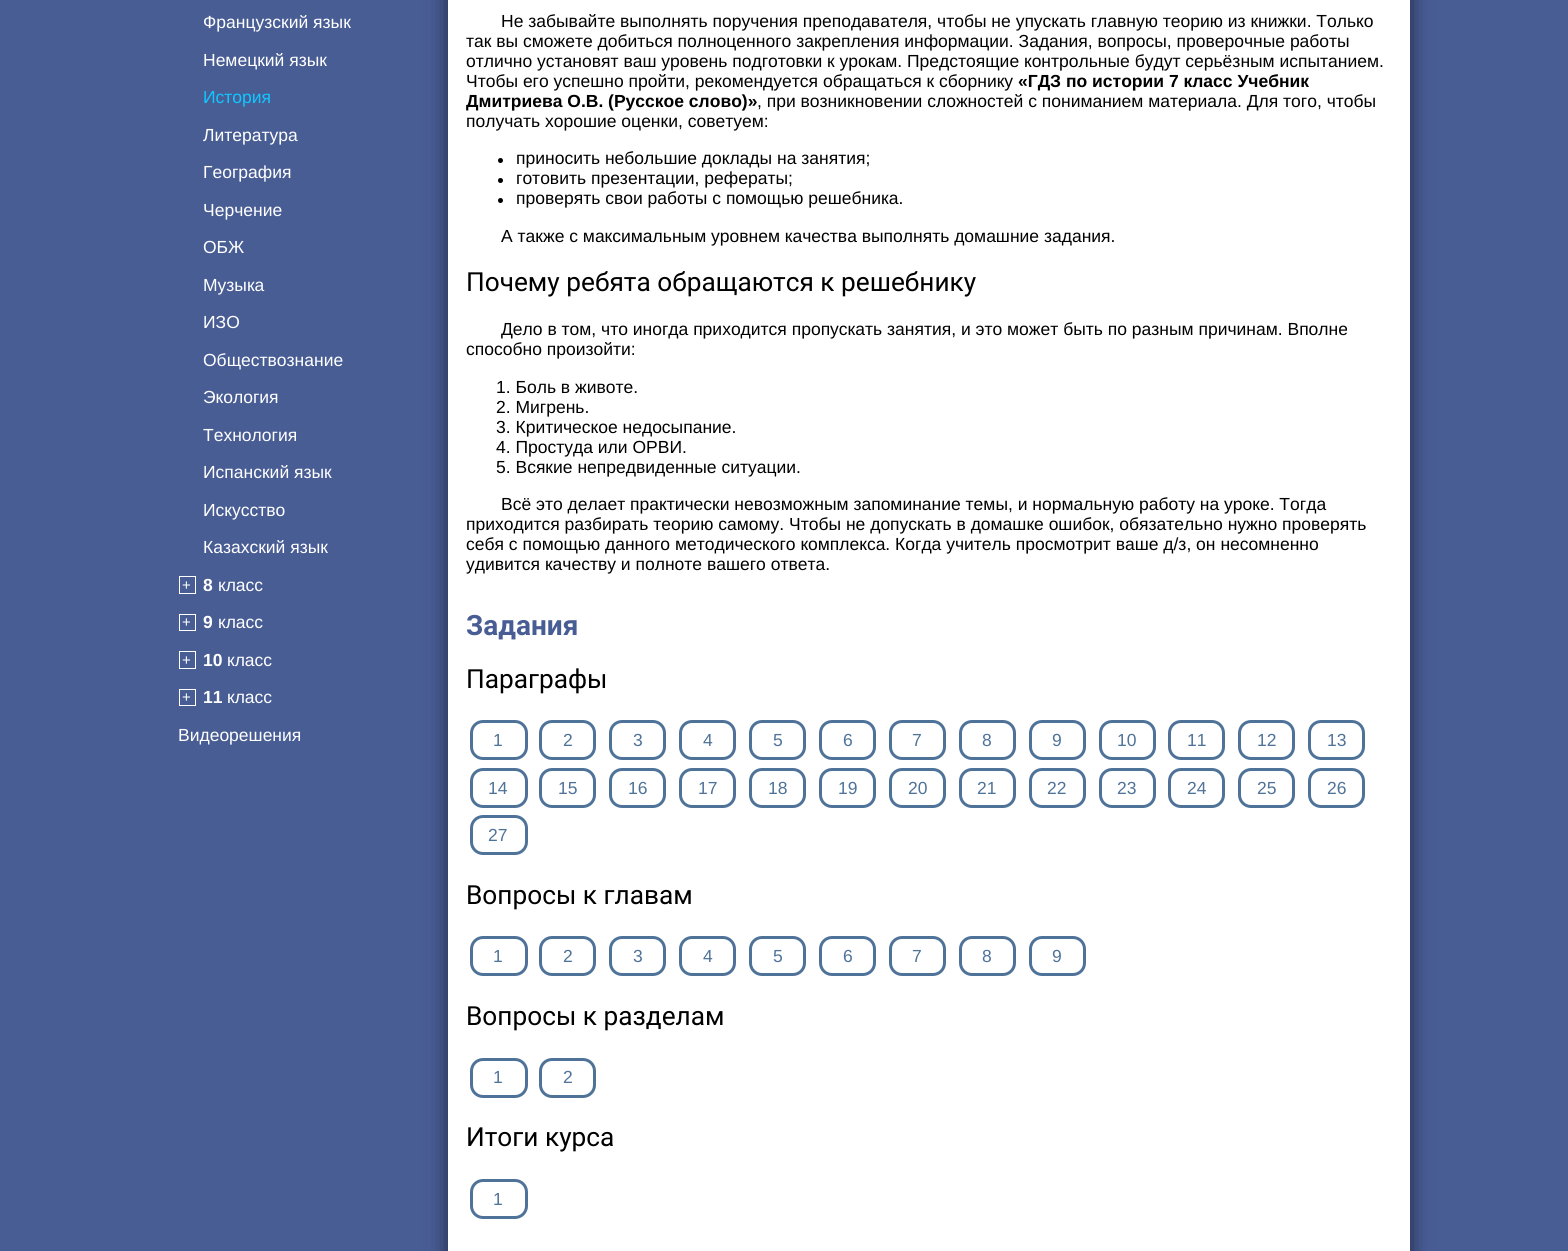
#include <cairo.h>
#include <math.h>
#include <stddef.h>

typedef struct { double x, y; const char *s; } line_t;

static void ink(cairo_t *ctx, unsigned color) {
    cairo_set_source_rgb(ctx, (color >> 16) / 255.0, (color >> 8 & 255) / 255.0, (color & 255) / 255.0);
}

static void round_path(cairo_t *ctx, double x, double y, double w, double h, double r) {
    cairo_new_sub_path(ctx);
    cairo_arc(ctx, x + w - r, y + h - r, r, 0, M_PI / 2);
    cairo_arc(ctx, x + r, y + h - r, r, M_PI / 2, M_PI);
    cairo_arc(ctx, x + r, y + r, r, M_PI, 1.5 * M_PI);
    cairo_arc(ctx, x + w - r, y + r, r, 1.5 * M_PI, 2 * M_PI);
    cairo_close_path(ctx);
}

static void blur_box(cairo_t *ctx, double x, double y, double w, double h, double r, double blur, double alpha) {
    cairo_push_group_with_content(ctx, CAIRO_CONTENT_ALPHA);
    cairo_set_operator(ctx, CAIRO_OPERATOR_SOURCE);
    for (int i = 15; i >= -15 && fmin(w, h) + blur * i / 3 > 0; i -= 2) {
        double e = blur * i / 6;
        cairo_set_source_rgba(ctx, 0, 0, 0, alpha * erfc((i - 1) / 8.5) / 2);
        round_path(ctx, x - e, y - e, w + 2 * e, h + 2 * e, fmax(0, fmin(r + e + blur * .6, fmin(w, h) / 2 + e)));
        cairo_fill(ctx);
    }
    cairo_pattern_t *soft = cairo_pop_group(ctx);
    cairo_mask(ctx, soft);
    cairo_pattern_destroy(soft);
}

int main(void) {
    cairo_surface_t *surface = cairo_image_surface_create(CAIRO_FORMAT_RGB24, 1568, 1251);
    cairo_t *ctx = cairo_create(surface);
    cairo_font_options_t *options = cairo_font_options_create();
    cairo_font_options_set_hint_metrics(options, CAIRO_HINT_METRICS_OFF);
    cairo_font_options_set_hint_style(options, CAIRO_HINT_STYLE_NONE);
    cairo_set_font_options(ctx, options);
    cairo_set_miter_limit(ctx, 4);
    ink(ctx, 0x495D95);
    cairo_paint(ctx);
    cairo_select_font_face(ctx, "Liberation Sans", CAIRO_FONT_SLANT_NORMAL, CAIRO_FONT_WEIGHT_NORMAL);
    cairo_set_font_size(ctx, 17.5);
    ink(ctx, 0xFFFFFF);
    cairo_move_to(ctx, 203, 28);
    cairo_show_text(ctx, "Французский язык");
    cairo_move_to(ctx, 203, 66);
    cairo_show_text(ctx, "Немецкий язык");
    ink(ctx, 0x11C7FF);
    cairo_move_to(ctx, 203, 103);
    cairo_show_text(ctx, "История");
    ink(ctx, 0xFFFFFF);
    {
        static const line_t items[] = {
            {203, 141, "Литература"},
            {203, 178, "География"},
            {203, 216, "Черчение"},
            {203, 253, "ОБЖ"},
            {203, 291, "Музыка"},
            {203, 328, "ИЗО"},
            {203, 366, "Обществознание"},
            {203, 403, "Экология"},
            {203, 441, "Технология"},
            {203, 478, "Испанский язык"},
            {203, 516, "Искусство"},
            {203, 553, "Казахский язык"},
        };
        for (size_t i = 0; i < sizeof items / sizeof *items; i++) {
            cairo_move_to(ctx, items[i].x, items[i].y);
            cairo_show_text(ctx, items[i].s);
        }
    }
    cairo_rectangle(ctx, 179.5, 576.5, 16, 17);
    cairo_set_line_width(ctx, 1);
    cairo_stroke(ctx);
    cairo_set_font_size(ctx, 15);
    cairo_move_to(ctx, 182, 590);
    cairo_show_text(ctx, "+");
    cairo_select_font_face(ctx, "Liberation Sans", CAIRO_FONT_SLANT_NORMAL, CAIRO_FONT_WEIGHT_BOLD);
    cairo_set_font_size(ctx, 17.5);
    cairo_move_to(ctx, 203, 591);
    cairo_show_text(ctx, "8");
    cairo_select_font_face(ctx, "Liberation Sans", CAIRO_FONT_SLANT_NORMAL, CAIRO_FONT_WEIGHT_NORMAL);
    cairo_move_to(ctx, 218, 591);
    cairo_show_text(ctx, "класс");
    cairo_rectangle(ctx, 179.5, 614.5, 16, 16);
    cairo_stroke(ctx);
    cairo_set_font_size(ctx, 15);
    cairo_move_to(ctx, 182, 627);
    cairo_show_text(ctx, "+");
    cairo_select_font_face(ctx, "Liberation Sans", CAIRO_FONT_SLANT_NORMAL, CAIRO_FONT_WEIGHT_BOLD);
    cairo_set_font_size(ctx, 17.5);
    cairo_move_to(ctx, 203, 628);
    cairo_show_text(ctx, "9");
    cairo_select_font_face(ctx, "Liberation Sans", CAIRO_FONT_SLANT_NORMAL, CAIRO_FONT_WEIGHT_NORMAL);
    cairo_move_to(ctx, 218, 628);
    cairo_show_text(ctx, "класс");
    cairo_rectangle(ctx, 179.5, 651.5, 16, 17);
    cairo_stroke(ctx);
    cairo_set_font_size(ctx, 15);
    cairo_move_to(ctx, 182, 665);
    cairo_show_text(ctx, "+");
    cairo_select_font_face(ctx, "Liberation Sans", CAIRO_FONT_SLANT_NORMAL, CAIRO_FONT_WEIGHT_BOLD);
    cairo_set_font_size(ctx, 17.5);
    cairo_move_to(ctx, 203, 666);
    cairo_show_text(ctx, "10");
    cairo_select_font_face(ctx, "Liberation Sans", CAIRO_FONT_SLANT_NORMAL, CAIRO_FONT_WEIGHT_NORMAL);
    cairo_move_to(ctx, 227, 666);
    cairo_show_text(ctx, "класс");
    cairo_rectangle(ctx, 179.5, 689.5, 16, 16);
    cairo_stroke(ctx);
    cairo_set_font_size(ctx, 15);
    cairo_move_to(ctx, 182, 702);
    cairo_show_text(ctx, "+");
    cairo_select_font_face(ctx, "Liberation Sans", CAIRO_FONT_SLANT_NORMAL, CAIRO_FONT_WEIGHT_BOLD);
    cairo_set_font_size(ctx, 17.5);
    cairo_move_to(ctx, 203, 703);
    cairo_show_text(ctx, "11");
    cairo_select_font_face(ctx, "Liberation Sans", CAIRO_FONT_SLANT_NORMAL, CAIRO_FONT_WEIGHT_NORMAL);
    cairo_move_to(ctx, 227, 703);
    cairo_show_text(ctx, "класс");
    cairo_move_to(ctx, 178, 741);
    cairo_show_text(ctx, "Видеорешения");
    ink(ctx, 0x000000);
    blur_box(ctx, 454, -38, 950, 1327, 0, 12.5, 1);
    ink(ctx, 0xFFFFFF);
    cairo_rectangle(ctx, 448, 0, 962, 1251);
    cairo_fill(ctx);
    ink(ctx, 0x000000);
    {
        static const line_t items[] = {
            {501, 27, "Не забывайте выполнять поручения преподавателя, чтобы не упускать главную теорию из книжки. Только"},
            {466, 47, "так вы сможете добиться полноценного закрепления информации. Задания, вопросы, проверочные работы"},
            {466, 67, "отлично установят ваш уровень подготовки к урокам. Предстоящие контрольные будут серьёзным испытанием."},
            {466, 87, "Чтобы его успешно пройти, рекомендуется обращаться к сборнику"},
        };
        for (size_t i = 0; i < sizeof items / sizeof *items; i++) {
            cairo_move_to(ctx, items[i].x, items[i].y);
            cairo_show_text(ctx, items[i].s);
        }
    }
    cairo_select_font_face(ctx, "Liberation Sans", CAIRO_FONT_SLANT_NORMAL, CAIRO_FONT_WEIGHT_BOLD);
    cairo_move_to(ctx, 1018, 87);
    cairo_show_text(ctx, "«ГДЗ по истории 7 класс Учебник");
    cairo_save(ctx);
    cairo_rectangle(ctx, 466, 0, 925, 591);
    cairo_clip(ctx);
    cairo_move_to(ctx, 466, 107);
    cairo_show_text(ctx, "Дмитриева О.В. (Русское слово)»");
    cairo_restore(ctx);
    cairo_select_font_face(ctx, "Liberation Sans", CAIRO_FONT_SLANT_NORMAL, CAIRO_FONT_WEIGHT_NORMAL);
    cairo_move_to(ctx, 757, 107);
    cairo_show_text(ctx, ", при возникновении сложностей с пониманием материала. Для того, чтобы");
    cairo_move_to(ctx, 466, 127);
    cairo_show_text(ctx, "получать хорошие оценки, советуем:");
    cairo_new_path(ctx);
    cairo_arc(ctx, 500.5, 160.5, 2.5, 0, 2 * M_PI);
    cairo_fill(ctx);
    cairo_move_to(ctx, 516, 164);
    cairo_show_text(ctx, "приносить небольшие доклады на занятия;");
    cairo_new_path(ctx);
    cairo_arc(ctx, 500.5, 180.5, 2.5, 0, 2 * M_PI);
    cairo_fill(ctx);
    cairo_move_to(ctx, 516, 184);
    cairo_show_text(ctx, "готовить презентации, рефераты;");
    cairo_new_path(ctx);
    cairo_arc(ctx, 500.5, 200.5, 2.5, 0, 2 * M_PI);
    cairo_fill(ctx);
    cairo_move_to(ctx, 516, 204);
    cairo_show_text(ctx, "проверять свои работы с помощью решебника.");
    cairo_move_to(ctx, 501, 242);
    cairo_show_text(ctx, "А также с максимальным уровнем качества выполнять домашние задания.");
    cairo_select_font_face(ctx, "Roboto", CAIRO_FONT_SLANT_NORMAL, CAIRO_FONT_WEIGHT_NORMAL);
    cairo_set_font_size(ctx, 26.25);
    cairo_move_to(ctx, 466, 291);
    cairo_show_text(ctx, "Почему ребята обращаются к решебнику");
    cairo_select_font_face(ctx, "Liberation Sans", CAIRO_FONT_SLANT_NORMAL, CAIRO_FONT_WEIGHT_NORMAL);
    cairo_set_font_size(ctx, 17.5);
    {
        static const line_t items[] = {
            {501, 335, "Дело в том, что иногда приходится пропускать занятия, и это может быть по разным причинам. Вполне"},
            {466, 355, "способно произойти:"},
            {496, 393, "1. Боль в животе."},
            {496, 413, "2. Мигрень."},
            {496, 433, "3. Критическое недосыпание."},
            {496, 453, "4. Простуда или ОРВИ."},
            {496, 473, "5. Всякие непредвиденные ситуации."},
            {501, 510, "Всё это делает практически невозможным запоминание темы, и нормальную работу на уроке. Тогда"},
            {466, 530, "приходится разбирать теорию самому. Чтобы не допускать в домашке ошибок, обязательно нужно проверять"},
            {466, 550, "себя с помощью данного методического комплекса. Когда учитель просмотрит ваше д/з, он несомненно"},
            {466, 570, "удивится качеству и полноте вашего ответа."},
        };
        for (size_t i = 0; i < sizeof items / sizeof *items; i++) {
            cairo_move_to(ctx, items[i].x, items[i].y);
            cairo_show_text(ctx, items[i].s);
        }
    }
    cairo_select_font_face(ctx, "Roboto", CAIRO_FONT_SLANT_NORMAL, CAIRO_FONT_WEIGHT_BOLD);
    cairo_set_font_size(ctx, 28);
    ink(ctx, 0x495D95);
    cairo_move_to(ctx, 466, 635);
    cairo_show_text(ctx, "Задания");
    cairo_select_font_face(ctx, "Roboto", CAIRO_FONT_SLANT_NORMAL, CAIRO_FONT_WEIGHT_NORMAL);
    cairo_set_font_size(ctx, 26.25);
    ink(ctx, 0x000000);
    cairo_move_to(ctx, 466, 688);
    cairo_show_text(ctx, "Параграфы");
    round_path(ctx, 471.5, 721.5, 55, 37, 11.5);
    ink(ctx, 0x4F7299);
    cairo_set_line_width(ctx, 3);
    cairo_stroke(ctx);
    cairo_select_font_face(ctx, "Liberation Sans", CAIRO_FONT_SLANT_NORMAL, CAIRO_FONT_WEIGHT_NORMAL);
    cairo_set_font_size(ctx, 17.5);
    cairo_move_to(ctx, 493, 746);
    cairo_show_text(ctx, "1");
    round_path(ctx, 540.5, 721.5, 54, 37, 11.5);
    cairo_stroke(ctx);
    cairo_move_to(ctx, 563, 746);
    cairo_show_text(ctx, "2");
    round_path(ctx, 610.5, 721.5, 54, 37, 11.5);
    cairo_stroke(ctx);
    cairo_move_to(ctx, 633, 746);
    cairo_show_text(ctx, "3");
    round_path(ctx, 680.5, 721.5, 54, 37, 11.5);
    cairo_stroke(ctx);
    cairo_move_to(ctx, 703, 746);
    cairo_show_text(ctx, "4");
    round_path(ctx, 750.5, 721.5, 54, 37, 11.5);
    cairo_stroke(ctx);
    cairo_move_to(ctx, 773, 746);
    cairo_show_text(ctx, "5");
    round_path(ctx, 820.5, 721.5, 54, 37, 11.5);
    cairo_stroke(ctx);
    cairo_move_to(ctx, 843, 746);
    cairo_show_text(ctx, "6");
    round_path(ctx, 890.5, 721.5, 54, 37, 11.5);
    cairo_stroke(ctx);
    cairo_move_to(ctx, 912, 746);
    cairo_show_text(ctx, "7");
    round_path(ctx, 960.5, 721.5, 54, 37, 11.5);
    cairo_stroke(ctx);
    cairo_move_to(ctx, 982, 746);
    cairo_show_text(ctx, "8");
    round_path(ctx, 1030.5, 721.5, 54, 37, 11.5);
    cairo_stroke(ctx);
    cairo_move_to(ctx, 1052, 746);
    cairo_show_text(ctx, "9");
    round_path(ctx, 1100.5, 721.5, 54, 37, 11.5);
    cairo_stroke(ctx);
    cairo_move_to(ctx, 1117, 746);
    cairo_show_text(ctx, "10");
    round_path(ctx, 1169.5, 721.5, 54, 37, 11.5);
    cairo_stroke(ctx);
    cairo_move_to(ctx, 1187, 746);
    cairo_show_text(ctx, "11");
    round_path(ctx, 1239.5, 721.5, 54, 37, 11.5);
    cairo_stroke(ctx);
    cairo_move_to(ctx, 1257, 746);
    cairo_show_text(ctx, "12");
    round_path(ctx, 1309.5, 721.5, 54, 37, 11.5);
    cairo_stroke(ctx);
    cairo_move_to(ctx, 1327, 746);
    cairo_show_text(ctx, "13");
    round_path(ctx, 471.5, 769.5, 55, 37, 11.5);
    cairo_stroke(ctx);
    cairo_move_to(ctx, 488, 794);
    cairo_show_text(ctx, "14");
    round_path(ctx, 540.5, 769.5, 54, 37, 11.5);
    cairo_stroke(ctx);
    cairo_move_to(ctx, 558, 794);
    cairo_show_text(ctx, "15");
    round_path(ctx, 610.5, 769.5, 54, 37, 11.5);
    cairo_stroke(ctx);
    cairo_move_to(ctx, 628, 794);
    cairo_show_text(ctx, "16");
    round_path(ctx, 680.5, 769.5, 54, 37, 11.5);
    cairo_stroke(ctx);
    cairo_move_to(ctx, 698, 794);
    cairo_show_text(ctx, "17");
    round_path(ctx, 750.5, 769.5, 54, 37, 11.5);
    cairo_stroke(ctx);
    cairo_move_to(ctx, 768, 794);
    cairo_show_text(ctx, "18");
    round_path(ctx, 820.5, 769.5, 54, 37, 11.5);
    cairo_stroke(ctx);
    cairo_move_to(ctx, 838, 794);
    cairo_show_text(ctx, "19");
    round_path(ctx, 890.5, 769.5, 54, 37, 11.5);
    cairo_stroke(ctx);
    cairo_move_to(ctx, 908, 794);
    cairo_show_text(ctx, "20");
    round_path(ctx, 960.5, 769.5, 54, 37, 11.5);
    cairo_stroke(ctx);
    cairo_move_to(ctx, 977, 794);
    cairo_show_text(ctx, "21");
    round_path(ctx, 1030.5, 769.5, 54, 37, 11.5);
    cairo_stroke(ctx);
    cairo_move_to(ctx, 1047, 794);
    cairo_show_text(ctx, "22");
    round_path(ctx, 1100.5, 769.5, 54, 37, 11.5);
    cairo_stroke(ctx);
    cairo_move_to(ctx, 1117, 794);
    cairo_show_text(ctx, "23");
    round_path(ctx, 1169.5, 769.5, 54, 37, 11.5);
    cairo_stroke(ctx);
    cairo_move_to(ctx, 1187, 794);
    cairo_show_text(ctx, "24");
    round_path(ctx, 1239.5, 769.5, 54, 37, 11.5);
    cairo_stroke(ctx);
    cairo_move_to(ctx, 1257, 794);
    cairo_show_text(ctx, "25");
    round_path(ctx, 1309.5, 769.5, 54, 37, 11.5);
    cairo_stroke(ctx);
    cairo_move_to(ctx, 1327, 794);
    cairo_show_text(ctx, "26");
    round_path(ctx, 471.5, 816.5, 55, 37, 11.5);
    cairo_stroke(ctx);
    cairo_move_to(ctx, 488, 841);
    cairo_show_text(ctx, "27");
    cairo_select_font_face(ctx, "Roboto", CAIRO_FONT_SLANT_NORMAL, CAIRO_FONT_WEIGHT_NORMAL);
    cairo_set_font_size(ctx, 26.25);
    ink(ctx, 0x000000);
    cairo_move_to(ctx, 466, 904);
    cairo_show_text(ctx, "Вопросы к главам");
    round_path(ctx, 471.5, 937.5, 55, 37, 11.5);
    ink(ctx, 0x4F7299);
    cairo_stroke(ctx);
    cairo_select_font_face(ctx, "Liberation Sans", CAIRO_FONT_SLANT_NORMAL, CAIRO_FONT_WEIGHT_NORMAL);
    cairo_set_font_size(ctx, 17.5);
    cairo_move_to(ctx, 493, 962);
    cairo_show_text(ctx, "1");
    round_path(ctx, 540.5, 937.5, 54, 37, 11.5);
    cairo_stroke(ctx);
    cairo_move_to(ctx, 563, 962);
    cairo_show_text(ctx, "2");
    round_path(ctx, 610.5, 937.5, 54, 37, 11.5);
    cairo_stroke(ctx);
    cairo_move_to(ctx, 633, 962);
    cairo_show_text(ctx, "3");
    round_path(ctx, 680.5, 937.5, 54, 37, 11.5);
    cairo_stroke(ctx);
    cairo_move_to(ctx, 703, 962);
    cairo_show_text(ctx, "4");
    round_path(ctx, 750.5, 937.5, 54, 37, 11.5);
    cairo_stroke(ctx);
    cairo_move_to(ctx, 773, 962);
    cairo_show_text(ctx, "5");
    round_path(ctx, 820.5, 937.5, 54, 37, 11.5);
    cairo_stroke(ctx);
    cairo_move_to(ctx, 843, 962);
    cairo_show_text(ctx, "6");
    round_path(ctx, 890.5, 937.5, 54, 37, 11.5);
    cairo_stroke(ctx);
    cairo_move_to(ctx, 912, 962);
    cairo_show_text(ctx, "7");
    round_path(ctx, 960.5, 937.5, 54, 37, 11.5);
    cairo_stroke(ctx);
    cairo_move_to(ctx, 982, 962);
    cairo_show_text(ctx, "8");
    round_path(ctx, 1030.5, 937.5, 54, 37, 11.5);
    cairo_stroke(ctx);
    cairo_move_to(ctx, 1052, 962);
    cairo_show_text(ctx, "9");
    cairo_select_font_face(ctx, "Roboto", CAIRO_FONT_SLANT_NORMAL, CAIRO_FONT_WEIGHT_NORMAL);
    cairo_set_font_size(ctx, 26.25);
    ink(ctx, 0x000000);
    cairo_move_to(ctx, 466, 1025);
    cairo_show_text(ctx, "Вопросы к разделам");
    round_path(ctx, 471.5, 1059.5, 55, 37, 11.5);
    ink(ctx, 0x4F7299);
    cairo_stroke(ctx);
    cairo_select_font_face(ctx, "Liberation Sans", CAIRO_FONT_SLANT_NORMAL, CAIRO_FONT_WEIGHT_NORMAL);
    cairo_set_font_size(ctx, 17.5);
    cairo_move_to(ctx, 493, 1083);
    cairo_show_text(ctx, "1");
    round_path(ctx, 540.5, 1059.5, 54, 37, 11.5);
    cairo_stroke(ctx);
    cairo_move_to(ctx, 563, 1083);
    cairo_show_text(ctx, "2");
    cairo_select_font_face(ctx, "Roboto", CAIRO_FONT_SLANT_NORMAL, CAIRO_FONT_WEIGHT_NORMAL);
    cairo_set_font_size(ctx, 26.25);
    ink(ctx, 0x000000);
    cairo_move_to(ctx, 466, 1146);
    cairo_show_text(ctx, "Итоги курса");
    round_path(ctx, 471.5, 1180.5, 55, 37, 11.5);
    ink(ctx, 0x4F7299);
    cairo_stroke(ctx);
    cairo_select_font_face(ctx, "Liberation Sans", CAIRO_FONT_SLANT_NORMAL, CAIRO_FONT_WEIGHT_NORMAL);
    cairo_set_font_size(ctx, 17.5);
    cairo_move_to(ctx, 493, 1205);
    cairo_show_text(ctx, "1");
    cairo_surface_write_to_png(surface, "image.png");
    cairo_font_options_destroy(options);
    cairo_destroy(ctx);
    cairo_surface_destroy(surface);
    return 0;
}
